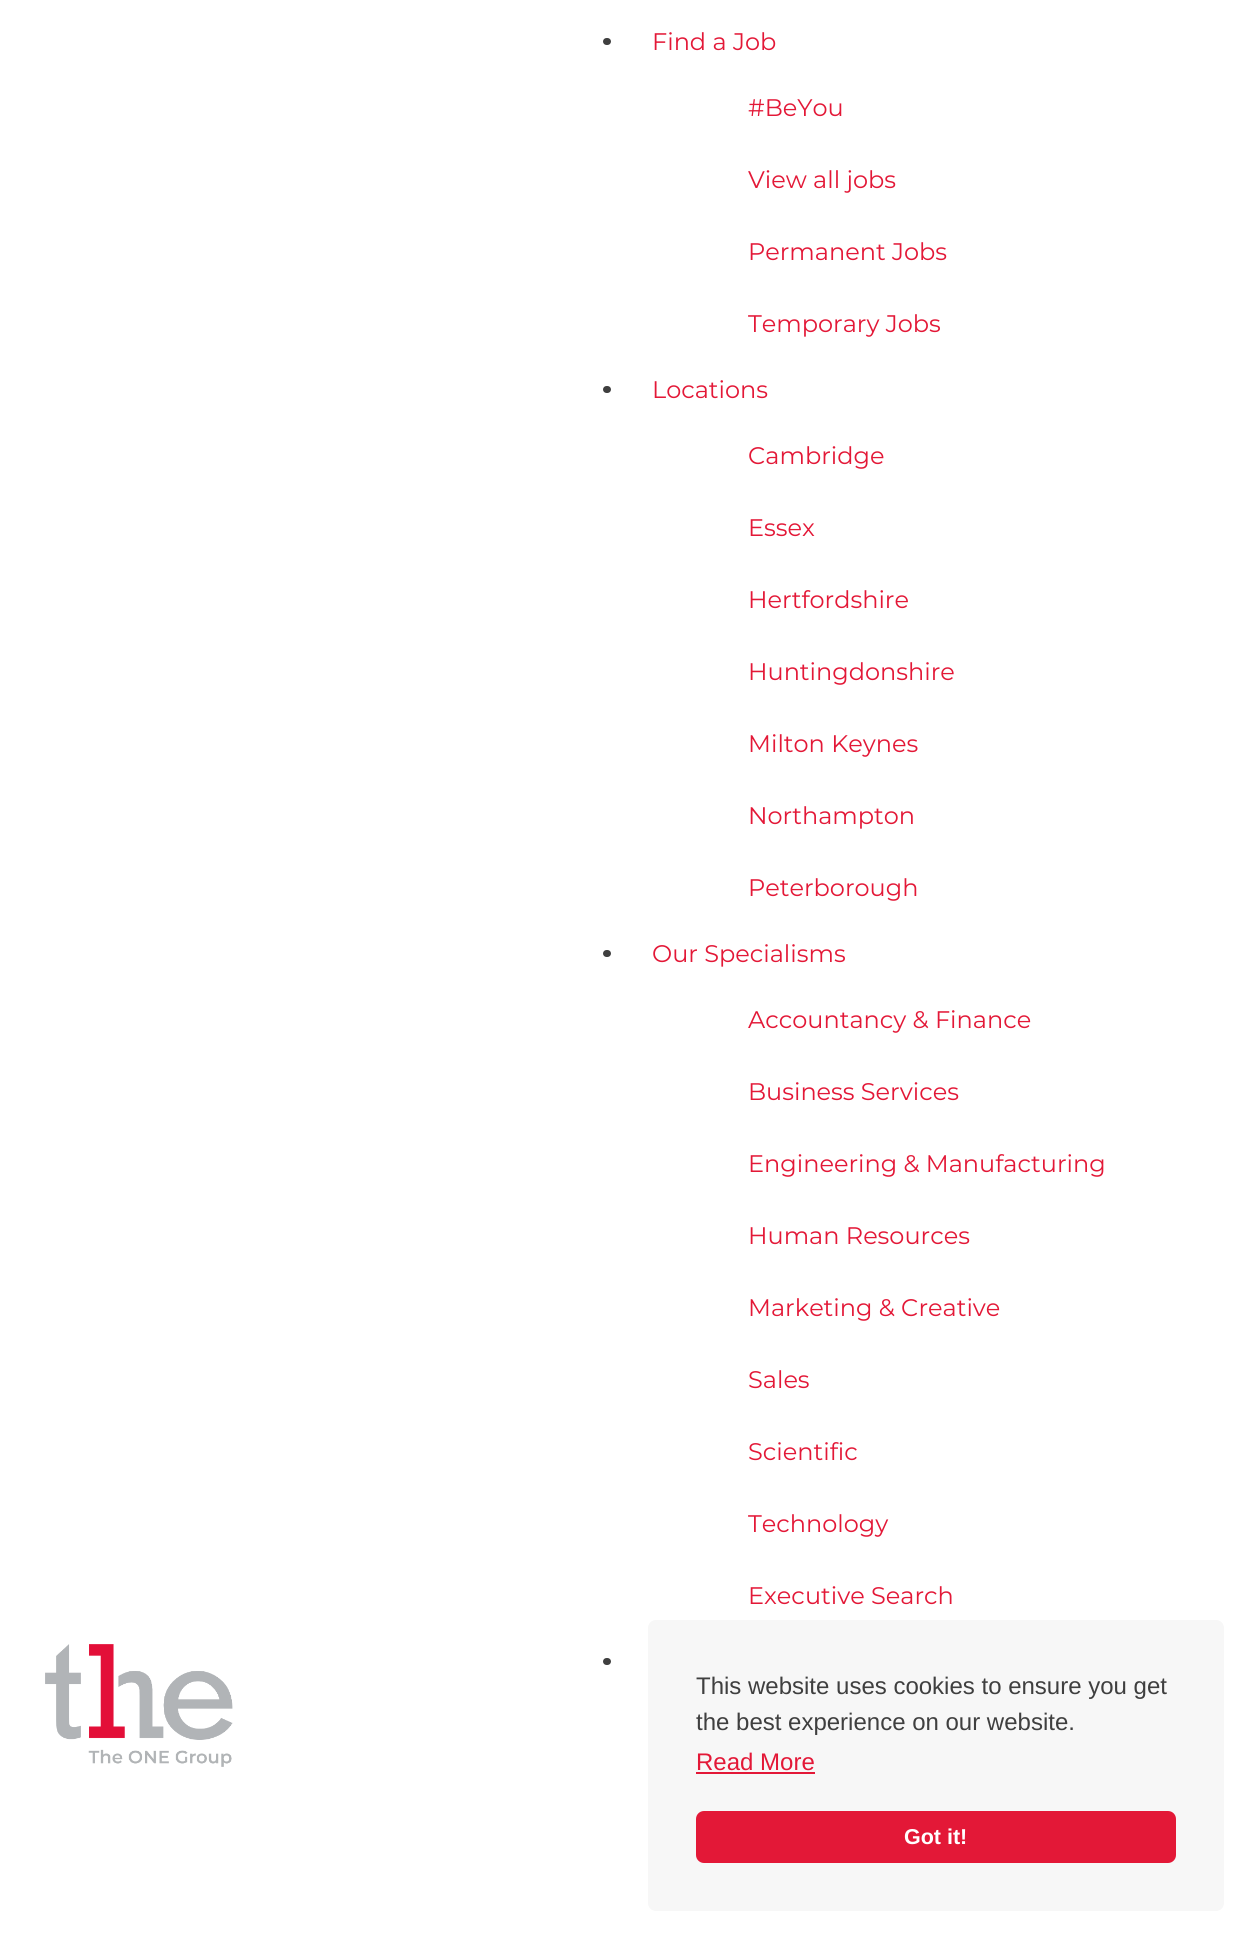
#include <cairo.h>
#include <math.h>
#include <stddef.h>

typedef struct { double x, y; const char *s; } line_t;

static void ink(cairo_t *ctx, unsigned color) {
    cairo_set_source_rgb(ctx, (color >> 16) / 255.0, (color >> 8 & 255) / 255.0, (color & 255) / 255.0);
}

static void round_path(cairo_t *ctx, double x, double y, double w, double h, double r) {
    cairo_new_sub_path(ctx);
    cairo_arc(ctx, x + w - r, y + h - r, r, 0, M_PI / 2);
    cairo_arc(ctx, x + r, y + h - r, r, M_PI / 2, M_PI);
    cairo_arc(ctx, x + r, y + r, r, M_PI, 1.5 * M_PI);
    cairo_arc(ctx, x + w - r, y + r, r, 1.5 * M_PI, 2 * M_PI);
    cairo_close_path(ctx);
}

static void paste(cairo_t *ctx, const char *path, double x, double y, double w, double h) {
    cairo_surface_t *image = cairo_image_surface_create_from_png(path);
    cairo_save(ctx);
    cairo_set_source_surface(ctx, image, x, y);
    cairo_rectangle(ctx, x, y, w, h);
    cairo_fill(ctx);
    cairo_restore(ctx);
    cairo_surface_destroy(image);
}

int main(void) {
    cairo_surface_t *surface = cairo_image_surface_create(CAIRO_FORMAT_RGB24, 1247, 1934);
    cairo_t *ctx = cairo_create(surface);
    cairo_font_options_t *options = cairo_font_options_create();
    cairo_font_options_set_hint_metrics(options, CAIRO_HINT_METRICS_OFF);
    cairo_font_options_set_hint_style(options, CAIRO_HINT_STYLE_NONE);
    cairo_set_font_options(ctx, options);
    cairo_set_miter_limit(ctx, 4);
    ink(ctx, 0xFFFFFF);
    cairo_paint(ctx);
    ink(ctx, 0x3F3F3F);
    round_path(ctx, 603, 38, 8, 7, 3.5);
    cairo_fill(ctx);
    cairo_select_font_face(ctx, "Montserrat", CAIRO_FONT_SLANT_NORMAL, CAIRO_FONT_WEIGHT_NORMAL);
    cairo_set_font_size(ctx, 24);
    ink(ctx, 0xE31837);
    {
        static const line_t items[] = {
            {652, 50, "Find a Job"},
            {748, 116, "#BeYou"},
            {748, 188, "View all jobs"},
            {748, 260, "Permanent Jobs"},
            {748, 332, "Temporary Jobs"},
        };
        for (size_t i = 0; i < sizeof items / sizeof *items; i++) {
            cairo_move_to(ctx, items[i].x, items[i].y);
            cairo_show_text(ctx, items[i].s);
        }
    }
    ink(ctx, 0x3F3F3F);
    round_path(ctx, 603, 386, 8, 7, 3.5);
    cairo_fill(ctx);
    ink(ctx, 0xE31837);
    {
        static const line_t items[] = {
            {652, 398, "Locations"},
            {748, 464, "Cambridge"},
            {748, 536, "Essex"},
            {748, 608, "Hertfordshire"},
            {748, 680, "Huntingdonshire"},
            {748, 752, "Milton Keynes"},
            {748, 824, "Northampton"},
            {748, 896, "Peterborough"},
        };
        for (size_t i = 0; i < sizeof items / sizeof *items; i++) {
            cairo_move_to(ctx, items[i].x, items[i].y);
            cairo_show_text(ctx, items[i].s);
        }
    }
    ink(ctx, 0x3F3F3F);
    round_path(ctx, 603, 950, 8, 7, 3.5);
    cairo_fill(ctx);
    ink(ctx, 0xE31837);
    {
        static const line_t items[] = {
            {652, 962, "Our Specialisms"},
            {748, 1028, "Accountancy & Finance"},
            {748, 1100, "Business Services"},
            {748, 1172, "Engineering & Manufacturing"},
            {748, 1244, "Human Resources"},
            {748, 1316, "Marketing & Creative"},
            {748, 1388, "Sales"},
            {748, 1460, "Scientific"},
            {748, 1532, "Technology"},
            {748, 1604, "Executive Search"},
        };
        for (size_t i = 0; i < sizeof items / sizeof *items; i++) {
            cairo_move_to(ctx, items[i].x, items[i].y);
            cairo_show_text(ctx, items[i].s);
        }
    }
    ink(ctx, 0x3F3F3F);
    round_path(ctx, 603, 1658, 8, 7, 3.5);
    cairo_fill(ctx);
    paste(ctx, "media/1.png", 45, 1644, 188, 123);
    ink(ctx, 0xF7F7F7);
    round_path(ctx, 648, 1620, 576, 291, 8);
    cairo_fill(ctx);
    cairo_select_font_face(ctx, "Liberation Sans", CAIRO_FONT_SLANT_NORMAL, CAIRO_FONT_WEIGHT_NORMAL);
    ink(ctx, 0x3F3F3F);
    cairo_move_to(ctx, 696, 1694);
    cairo_show_text(ctx, "This website uses cookies to ensure you get");
    cairo_move_to(ctx, 696, 1730);
    cairo_show_text(ctx, "the best experience on our website.");
    ink(ctx, 0xE31837);
    cairo_move_to(ctx, 696, 1770);
    cairo_show_text(ctx, "Read More");
    cairo_rectangle(ctx, 696, 1772, 119, 2);
    cairo_fill(ctx);
    round_path(ctx, 696, 1811, 480, 52, 8);
    cairo_fill(ctx);
    cairo_select_font_face(ctx, "Liberation Sans", CAIRO_FONT_SLANT_NORMAL, CAIRO_FONT_WEIGHT_BOLD);
    cairo_set_font_size(ctx, 21.5);
    ink(ctx, 0xFFFFFF);
    cairo_move_to(ctx, 904, 1844);
    cairo_show_text(ctx, "Got it!");
    cairo_surface_write_to_png(surface, "image.png");
    cairo_font_options_destroy(options);
    cairo_destroy(ctx);
    cairo_surface_destroy(surface);
    return 0;
}
